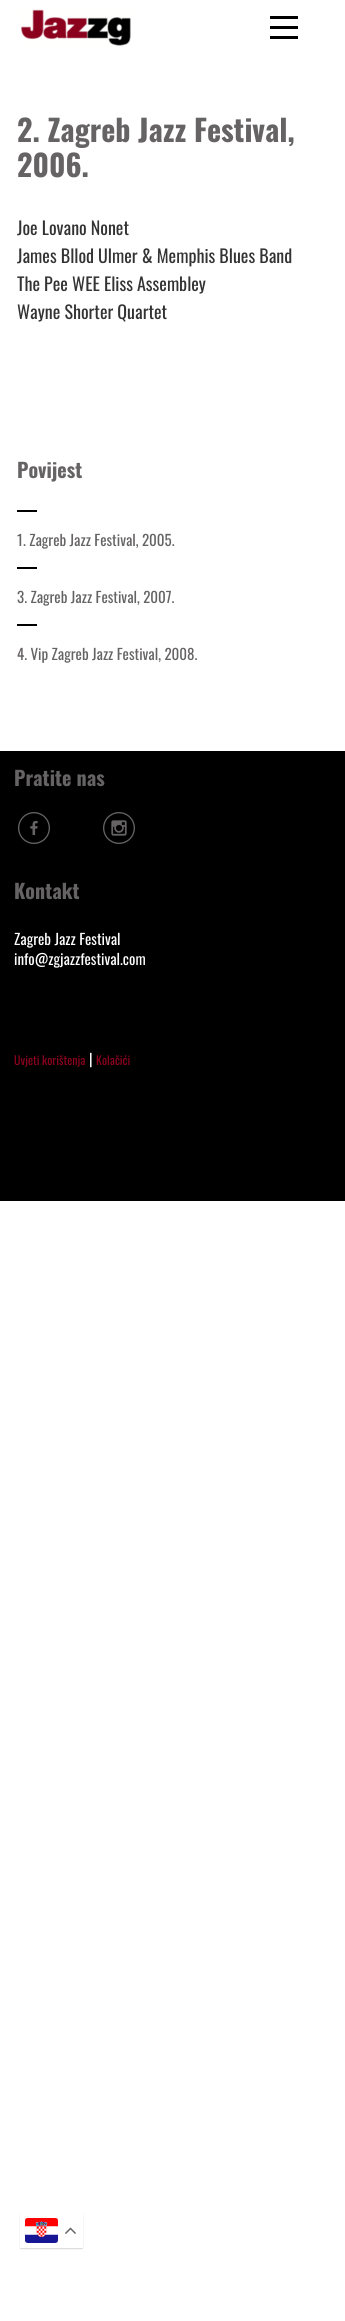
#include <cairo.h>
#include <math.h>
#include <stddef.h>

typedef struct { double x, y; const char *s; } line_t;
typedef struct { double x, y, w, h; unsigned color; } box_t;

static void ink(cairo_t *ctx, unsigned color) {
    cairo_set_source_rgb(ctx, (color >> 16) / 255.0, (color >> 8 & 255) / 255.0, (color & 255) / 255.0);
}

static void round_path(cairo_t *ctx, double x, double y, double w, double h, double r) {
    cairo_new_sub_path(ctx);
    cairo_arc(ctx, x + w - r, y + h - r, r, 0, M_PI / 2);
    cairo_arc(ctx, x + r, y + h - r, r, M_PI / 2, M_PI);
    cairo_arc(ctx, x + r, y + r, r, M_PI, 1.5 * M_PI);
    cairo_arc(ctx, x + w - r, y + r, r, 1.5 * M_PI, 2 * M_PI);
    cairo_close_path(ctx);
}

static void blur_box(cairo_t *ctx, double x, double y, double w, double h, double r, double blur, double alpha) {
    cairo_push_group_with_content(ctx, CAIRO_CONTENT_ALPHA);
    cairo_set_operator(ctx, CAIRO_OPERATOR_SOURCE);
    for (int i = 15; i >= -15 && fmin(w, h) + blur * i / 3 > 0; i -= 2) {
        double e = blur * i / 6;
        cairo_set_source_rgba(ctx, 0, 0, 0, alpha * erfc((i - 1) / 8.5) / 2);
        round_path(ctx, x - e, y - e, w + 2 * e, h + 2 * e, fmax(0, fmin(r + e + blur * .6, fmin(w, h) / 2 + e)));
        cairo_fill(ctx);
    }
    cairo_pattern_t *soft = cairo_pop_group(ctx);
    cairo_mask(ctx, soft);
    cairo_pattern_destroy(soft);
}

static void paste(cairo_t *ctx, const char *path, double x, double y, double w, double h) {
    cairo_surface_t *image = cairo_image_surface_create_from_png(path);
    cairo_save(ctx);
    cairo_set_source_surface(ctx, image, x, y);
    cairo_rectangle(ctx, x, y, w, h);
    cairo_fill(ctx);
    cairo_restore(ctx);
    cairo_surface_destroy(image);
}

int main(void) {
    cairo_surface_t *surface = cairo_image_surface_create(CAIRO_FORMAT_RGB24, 345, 2321);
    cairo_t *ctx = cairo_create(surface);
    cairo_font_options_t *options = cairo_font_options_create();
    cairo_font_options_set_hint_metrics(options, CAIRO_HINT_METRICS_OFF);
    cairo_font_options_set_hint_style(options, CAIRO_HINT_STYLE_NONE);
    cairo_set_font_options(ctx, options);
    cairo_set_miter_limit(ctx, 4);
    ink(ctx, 0xFFFFFF);
    cairo_paint(ctx);
    paste(ctx, "media/1.png", 21, 9, 110, 37);
    {
        static const box_t items[] = {
            {270, 16, 28, 3, 0x000000},
            {270, 26, 28, 3, 0x000000},
            {270, 36, 28, 3, 0x000000},
        };
        for (size_t i = 0; i < sizeof items / sizeof *items; i++) {
            ink(ctx, items[i].color);
            cairo_rectangle(ctx, items[i].x, items[i].y, items[i].w, items[i].h);
            cairo_fill(ctx);
        }
    }
    cairo_select_font_face(ctx, "Oswald", CAIRO_FONT_SLANT_NORMAL, CAIRO_FONT_WEIGHT_BOLD);
    cairo_set_font_size(ctx, 30);
    ink(ctx, 0x656364);
    cairo_move_to(ctx, 17, 142);
    cairo_show_text(ctx, "2. Zagreb Jazz Festival,");
    cairo_move_to(ctx, 17, 177);
    cairo_show_text(ctx, "2006.");
    cairo_select_font_face(ctx, "Oswald", CAIRO_FONT_SLANT_NORMAL, CAIRO_FONT_WEIGHT_NORMAL);
    cairo_set_font_size(ctx, 18);
    ink(ctx, 0x333333);
    {
        static const line_t items[] = {
            {17, 235, "Joe Lovano Nonet"},
            {17, 263, "James Bllod Ulmer & Memphis Blues Band"},
            {17, 291, "The Pee WEE Eliss Assembley"},
            {17, 319, "Wayne Shorter Quartet"},
        };
        for (size_t i = 0; i < sizeof items / sizeof *items; i++) {
            cairo_move_to(ctx, items[i].x, items[i].y);
            cairo_show_text(ctx, items[i].s);
        }
    }
    cairo_select_font_face(ctx, "Oswald", CAIRO_FONT_SLANT_NORMAL, CAIRO_FONT_WEIGHT_BOLD);
    cairo_set_font_size(ctx, 20);
    ink(ctx, 0x656364);
    cairo_move_to(ctx, 17, 478);
    cairo_show_text(ctx, "Povijest");
    ink(ctx, 0x000000);
    cairo_rectangle(ctx, 17, 510, 20, 2);
    cairo_fill(ctx);
    cairo_select_font_face(ctx, "Oswald", CAIRO_FONT_SLANT_NORMAL, CAIRO_FONT_WEIGHT_NORMAL);
    cairo_set_font_size(ctx, 15);
    ink(ctx, 0x656364);
    cairo_move_to(ctx, 17, 546);
    cairo_show_text(ctx, "1. Zagreb Jazz Festival, 2005.");
    ink(ctx, 0x000000);
    cairo_rectangle(ctx, 17, 567, 20, 2);
    cairo_fill(ctx);
    ink(ctx, 0x656364);
    cairo_move_to(ctx, 17, 603);
    cairo_show_text(ctx, "3. Zagreb Jazz Festival, 2007.");
    ink(ctx, 0x000000);
    cairo_rectangle(ctx, 17, 624, 20, 2);
    cairo_fill(ctx);
    ink(ctx, 0x656364);
    cairo_move_to(ctx, 17, 660);
    cairo_show_text(ctx, "4. Vip Zagreb Jazz Festival, 2008.");
    ink(ctx, 0x000000);
    cairo_rectangle(ctx, 0, 751, 345, 450);
    cairo_fill(ctx);
    cairo_select_font_face(ctx, "Oswald", CAIRO_FONT_SLANT_NORMAL, CAIRO_FONT_WEIGHT_BOLD);
    cairo_set_font_size(ctx, 20);
    ink(ctx, 0x656364);
    cairo_move_to(ctx, 14, 786);
    cairo_show_text(ctx, "Pratite nas");
    cairo_select_font_face(ctx, "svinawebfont", CAIRO_FONT_SLANT_NORMAL, CAIRO_FONT_WEIGHT_NORMAL);
    cairo_set_font_size(ctx, 40);
    cairo_move_to(ctx, 14, 848);
    cairo_show_text(ctx, "k");
    cairo_move_to(ctx, 99, 848);
    cairo_show_text(ctx, "o");
    cairo_select_font_face(ctx, "Oswald", CAIRO_FONT_SLANT_NORMAL, CAIRO_FONT_WEIGHT_BOLD);
    cairo_set_font_size(ctx, 20);
    cairo_move_to(ctx, 14, 899);
    cairo_show_text(ctx, "Kontakt");
    cairo_select_font_face(ctx, "Oswald", CAIRO_FONT_SLANT_NORMAL, CAIRO_FONT_WEIGHT_NORMAL);
    cairo_set_font_size(ctx, 15);
    ink(ctx, 0xFFFFFF);
    cairo_move_to(ctx, 14, 945);
    cairo_show_text(ctx, "Zagreb Jazz Festival");
    cairo_move_to(ctx, 14, 965);
    cairo_show_text(ctx, "info@zgjazzfestival.com");
    cairo_set_font_size(ctx, 12);
    ink(ctx, 0x8B001D);
    cairo_move_to(ctx, 14, 1065);
    cairo_show_text(ctx, "Uvjeti korištenja");
    cairo_set_font_size(ctx, 15);
    ink(ctx, 0xFFFFFF);
    cairo_move_to(ctx, 89, 1065);
    cairo_show_text(ctx, "|");
    cairo_set_font_size(ctx, 12);
    ink(ctx, 0x8B001D);
    cairo_move_to(ctx, 96, 1065);
    cairo_show_text(ctx, "Kolačići");
    ink(ctx, 0x000000);
    blur_box(ctx, 20, 2214, 63, 35, 1, 0.5, 0.15);
    ink(ctx, 0xFFFFFF);
    round_path(ctx, 20, 2213, 63, 35, 1);
    cairo_fill(ctx);
    paste(ctx, "media/2.png", 25, 2218, 33, 25);
    paste(ctx, "media/3.png", 65, 2227, 11, 7);
    cairo_surface_write_to_png(surface, "image.png");
    cairo_font_options_destroy(options);
    cairo_destroy(ctx);
    cairo_surface_destroy(surface);
    return 0;
}
